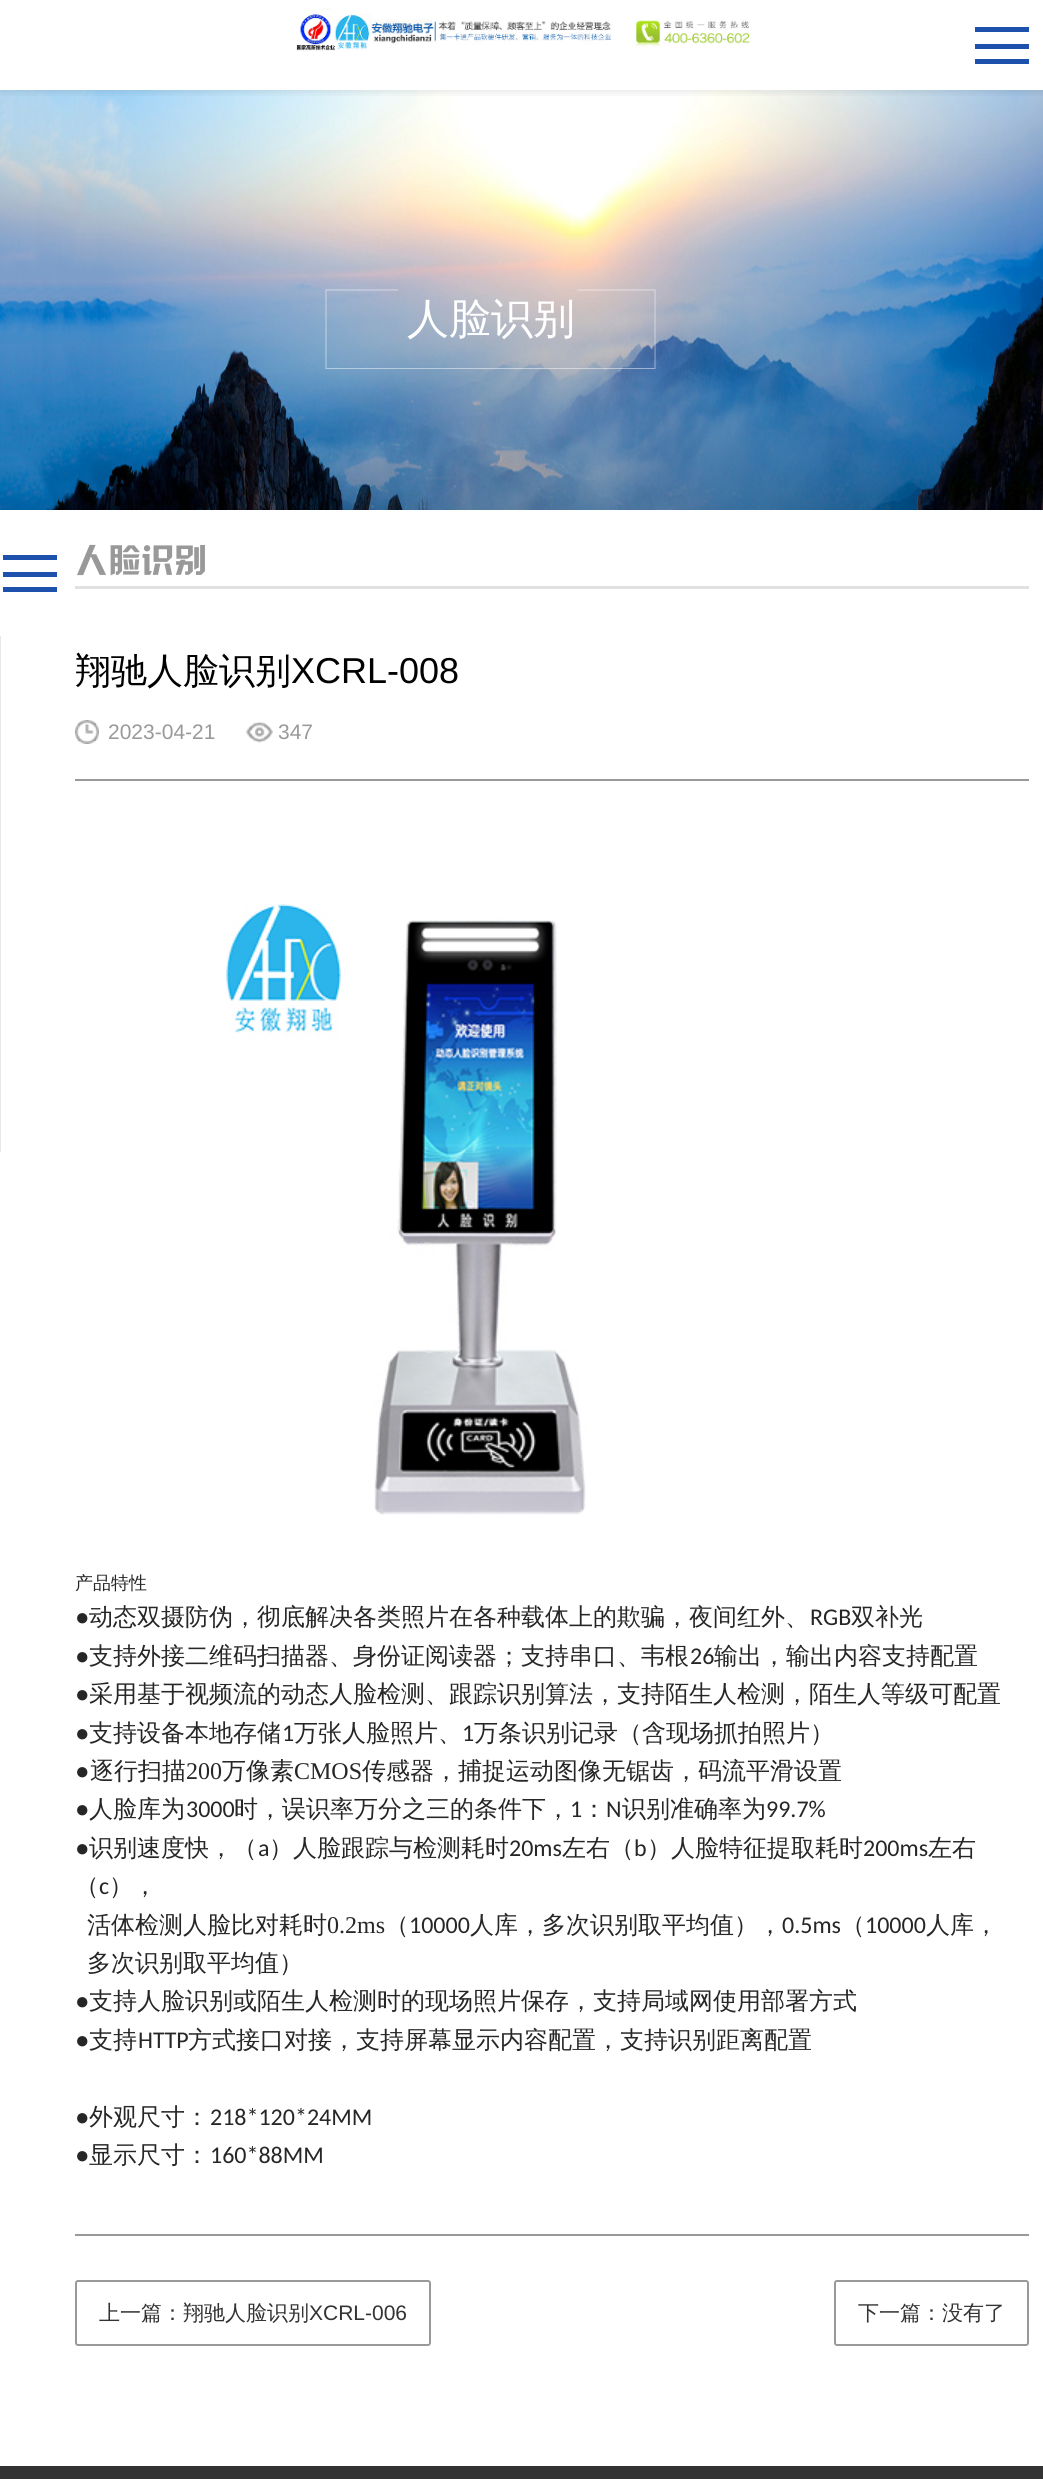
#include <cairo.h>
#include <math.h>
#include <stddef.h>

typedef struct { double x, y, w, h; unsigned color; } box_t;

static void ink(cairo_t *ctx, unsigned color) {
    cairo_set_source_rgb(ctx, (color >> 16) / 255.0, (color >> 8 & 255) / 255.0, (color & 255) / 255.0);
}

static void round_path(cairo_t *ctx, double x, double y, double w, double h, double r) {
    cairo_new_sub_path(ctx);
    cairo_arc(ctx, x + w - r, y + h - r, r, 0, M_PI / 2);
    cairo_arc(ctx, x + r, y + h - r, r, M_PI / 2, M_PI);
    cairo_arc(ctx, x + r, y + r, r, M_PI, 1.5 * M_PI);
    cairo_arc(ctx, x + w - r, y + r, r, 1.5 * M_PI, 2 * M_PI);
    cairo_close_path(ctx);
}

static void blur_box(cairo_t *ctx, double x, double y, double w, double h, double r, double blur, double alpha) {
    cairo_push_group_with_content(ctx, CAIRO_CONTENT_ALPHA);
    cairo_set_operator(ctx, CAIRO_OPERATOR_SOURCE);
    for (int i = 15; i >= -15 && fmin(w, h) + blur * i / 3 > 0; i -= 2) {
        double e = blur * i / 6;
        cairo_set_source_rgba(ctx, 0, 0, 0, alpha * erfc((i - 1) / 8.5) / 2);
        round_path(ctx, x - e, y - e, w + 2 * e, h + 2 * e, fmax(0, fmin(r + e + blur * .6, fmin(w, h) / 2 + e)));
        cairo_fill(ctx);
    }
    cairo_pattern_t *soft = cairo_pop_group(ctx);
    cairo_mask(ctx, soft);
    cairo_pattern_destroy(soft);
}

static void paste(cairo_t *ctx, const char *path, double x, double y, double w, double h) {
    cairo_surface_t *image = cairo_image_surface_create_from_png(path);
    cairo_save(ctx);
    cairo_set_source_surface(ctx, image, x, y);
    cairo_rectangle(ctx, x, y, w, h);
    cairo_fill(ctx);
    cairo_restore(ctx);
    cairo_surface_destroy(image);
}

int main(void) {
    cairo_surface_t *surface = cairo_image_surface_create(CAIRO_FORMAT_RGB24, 1043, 2479);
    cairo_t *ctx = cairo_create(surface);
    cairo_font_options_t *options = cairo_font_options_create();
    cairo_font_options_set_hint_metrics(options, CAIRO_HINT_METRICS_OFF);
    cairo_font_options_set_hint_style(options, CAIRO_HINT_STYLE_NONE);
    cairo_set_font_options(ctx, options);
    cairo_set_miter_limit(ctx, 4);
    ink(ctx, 0xFFFFFF);
    cairo_paint(ctx);
    paste(ctx, "media/2.png", 0, 90, 1043, 420);
    cairo_save(ctx);
    cairo_rectangle(ctx, 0, 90, 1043, 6);
    cairo_clip(ctx);
    ink(ctx, 0x000000);
    blur_box(ctx, 0, 2, 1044, 90, 0, 4.5, 0.1);
    cairo_restore(ctx);
    paste(ctx, "media/1.png", 296, 8, 454, 43);
    {
        static const box_t items[] = {
            {975, 27, 54, 5, 0x1E50AE},
            {975, 44, 54, 5, 0x1E50AE},
            {975, 59, 54, 5, 0x1E50AE},
        };
        for (size_t i = 0; i < sizeof items / sizeof *items; i++) {
            ink(ctx, items[i].color);
            cairo_rectangle(ctx, items[i].x, items[i].y, items[i].w, items[i].h);
            cairo_fill(ctx);
        }
    }
    paste(ctx, "media/3.png", 325, 289, 331, 80);
    cairo_select_font_face(ctx, "WenQuanYi Zen Hei Medium", CAIRO_FONT_SLANT_NORMAL, CAIRO_FONT_WEIGHT_NORMAL);
    cairo_set_font_size(ctx, 42);
    ink(ctx, 0xFFFFFF);
    cairo_move_to(ctx, 407, 333);
    cairo_show_text(ctx, "人脸识别");
    {
        static const box_t items[] = {
            {3, 555, 54, 5, 0x1E50AE},
            {3, 572, 54, 5, 0x1E50AE},
            {3, 587, 54, 5, 0x1E50AE},
            {0, 636, 1, 516, 0xE8E8E8},
            {75, 586, 954, 3, 0xE1E1E1},
        };
        for (size_t i = 0; i < sizeof items / sizeof *items; i++) {
            ink(ctx, items[i].color);
            cairo_rectangle(ctx, items[i].x, items[i].y, items[i].w, items[i].h);
            cairo_fill(ctx);
        }
    }
    cairo_select_font_face(ctx, "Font", CAIRO_FONT_SLANT_NORMAL, CAIRO_FONT_WEIGHT_NORMAL);
    cairo_set_font_size(ctx, 33);
    ink(ctx, 0x999999);
    cairo_move_to(ctx, 75, 570);
    cairo_show_text(ctx, "人脸识别");
    cairo_select_font_face(ctx, "WenQuanYi Zen Hei Medium", CAIRO_FONT_SLANT_NORMAL, CAIRO_FONT_WEIGHT_NORMAL);
    cairo_set_font_size(ctx, 36);
    ink(ctx, 0x000000);
    cairo_move_to(ctx, 75, 683);
    cairo_show_text(ctx, "翔驰人脸识别");
    cairo_select_font_face(ctx, "Liberation Sans", CAIRO_FONT_SLANT_NORMAL, CAIRO_FONT_WEIGHT_NORMAL);
    cairo_move_to(ctx, 291, 683);
    cairo_show_text(ctx, "XCRL-008");
    paste(ctx, "media/4.png", 75, 720, 24, 24);
    cairo_set_font_size(ctx, 21);
    ink(ctx, 0x999999);
    cairo_move_to(ctx, 108, 739);
    cairo_show_text(ctx, "2023-04-21");
    paste(ctx, "media/5.png", 246, 721, 27, 22);
    cairo_move_to(ctx, 278, 739);
    cairo_show_text(ctx, "347");
    cairo_rectangle(ctx, 75, 779, 954, 2);
    cairo_fill(ctx);
    cairo_rectangle(ctx, 75, 2234, 954, 2);
    cairo_fill(ctx);
    paste(ctx, "media/6.png", 226, 904, 360, 611);
    cairo_select_font_face(ctx, "WenQuanYi Zen Hei Medium", CAIRO_FONT_SLANT_NORMAL, CAIRO_FONT_WEIGHT_NORMAL);
    cairo_set_font_size(ctx, 18);
    ink(ctx, 0x262626);
    cairo_move_to(ctx, 75, 1589);
    cairo_show_text(ctx, "产品特性");
    cairo_select_font_face(ctx, "Liberation Serif", CAIRO_FONT_SLANT_NORMAL, CAIRO_FONT_WEIGHT_NORMAL);
    cairo_set_font_size(ctx, 24);
    cairo_move_to(ctx, 75, 1625);
    cairo_show_text(ctx, "●");
    cairo_select_font_face(ctx, "WenQuanYi Zen Hei Medium", CAIRO_FONT_SLANT_NORMAL, CAIRO_FONT_WEIGHT_NORMAL);
    cairo_move_to(ctx, 89, 1625);
    cairo_show_text(ctx, "动态双摄防伪，彻底解决各类照片在各种载体上的欺骗，夜间红外、");
    cairo_select_font_face(ctx, "Carlito", CAIRO_FONT_SLANT_NORMAL, CAIRO_FONT_WEIGHT_NORMAL);
    cairo_move_to(ctx, 810, 1625);
    cairo_show_text(ctx, "RGB");
    cairo_select_font_face(ctx, "WenQuanYi Zen Hei Medium", CAIRO_FONT_SLANT_NORMAL, CAIRO_FONT_WEIGHT_NORMAL);
    cairo_move_to(ctx, 851, 1625);
    cairo_show_text(ctx, "双补光");
    cairo_select_font_face(ctx, "Liberation Serif", CAIRO_FONT_SLANT_NORMAL, CAIRO_FONT_WEIGHT_NORMAL);
    cairo_move_to(ctx, 75, 1664);
    cairo_show_text(ctx, "●");
    cairo_select_font_face(ctx, "WenQuanYi Zen Hei Medium", CAIRO_FONT_SLANT_NORMAL, CAIRO_FONT_WEIGHT_NORMAL);
    cairo_move_to(ctx, 89, 1664);
    cairo_show_text(ctx, "支持外接二维码扫描器、身份证阅读器；支持串口、韦根");
    cairo_select_font_face(ctx, "Carlito", CAIRO_FONT_SLANT_NORMAL, CAIRO_FONT_WEIGHT_NORMAL);
    cairo_move_to(ctx, 690, 1664);
    cairo_show_text(ctx, "26");
    cairo_select_font_face(ctx, "WenQuanYi Zen Hei Medium", CAIRO_FONT_SLANT_NORMAL, CAIRO_FONT_WEIGHT_NORMAL);
    cairo_move_to(ctx, 714, 1664);
    cairo_show_text(ctx, "输出，输出内容支持配置");
    cairo_select_font_face(ctx, "Liberation Serif", CAIRO_FONT_SLANT_NORMAL, CAIRO_FONT_WEIGHT_NORMAL);
    cairo_move_to(ctx, 75, 1702);
    cairo_show_text(ctx, "●");
    cairo_select_font_face(ctx, "WenQuanYi Zen Hei Medium", CAIRO_FONT_SLANT_NORMAL, CAIRO_FONT_WEIGHT_NORMAL);
    cairo_move_to(ctx, 89, 1702);
    cairo_show_text(ctx, "采用基于视频流的动态人脸检测、跟踪识别算法，支持陌生人检测，陌生人等级可配置");
    cairo_select_font_face(ctx, "Liberation Serif", CAIRO_FONT_SLANT_NORMAL, CAIRO_FONT_WEIGHT_NORMAL);
    cairo_move_to(ctx, 75, 1741);
    cairo_show_text(ctx, "●");
    cairo_select_font_face(ctx, "WenQuanYi Zen Hei Medium", CAIRO_FONT_SLANT_NORMAL, CAIRO_FONT_WEIGHT_NORMAL);
    cairo_move_to(ctx, 89, 1741);
    cairo_show_text(ctx, "支持设备本地存储");
    cairo_select_font_face(ctx, "Carlito", CAIRO_FONT_SLANT_NORMAL, CAIRO_FONT_WEIGHT_NORMAL);
    cairo_move_to(ctx, 282, 1741);
    cairo_show_text(ctx, "1");
    cairo_select_font_face(ctx, "WenQuanYi Zen Hei Medium", CAIRO_FONT_SLANT_NORMAL, CAIRO_FONT_WEIGHT_NORMAL);
    cairo_move_to(ctx, 294, 1741);
    cairo_show_text(ctx, "万张人脸照片、");
    cairo_select_font_face(ctx, "Carlito", CAIRO_FONT_SLANT_NORMAL, CAIRO_FONT_WEIGHT_NORMAL);
    cairo_move_to(ctx, 462, 1741);
    cairo_show_text(ctx, "1");
    cairo_select_font_face(ctx, "WenQuanYi Zen Hei Medium", CAIRO_FONT_SLANT_NORMAL, CAIRO_FONT_WEIGHT_NORMAL);
    cairo_move_to(ctx, 474, 1741);
    cairo_show_text(ctx, "万条识别记录（含现场抓拍照片）");
    cairo_select_font_face(ctx, "Liberation Serif", CAIRO_FONT_SLANT_NORMAL, CAIRO_FONT_WEIGHT_NORMAL);
    cairo_move_to(ctx, 75, 1779);
    cairo_show_text(ctx, "●");
    cairo_select_font_face(ctx, "WenQuanYi Zen Hei Medium", CAIRO_FONT_SLANT_NORMAL, CAIRO_FONT_WEIGHT_NORMAL);
    cairo_move_to(ctx, 90, 1779);
    cairo_show_text(ctx, "逐行扫描");
    cairo_select_font_face(ctx, "Liberation Serif", CAIRO_FONT_SLANT_NORMAL, CAIRO_FONT_WEIGHT_NORMAL);
    cairo_move_to(ctx, 186, 1779);
    cairo_show_text(ctx, "200");
    cairo_select_font_face(ctx, "WenQuanYi Zen Hei Medium", CAIRO_FONT_SLANT_NORMAL, CAIRO_FONT_WEIGHT_NORMAL);
    cairo_move_to(ctx, 222, 1779);
    cairo_show_text(ctx, "万像素");
    cairo_select_font_face(ctx, "Liberation Serif", CAIRO_FONT_SLANT_NORMAL, CAIRO_FONT_WEIGHT_NORMAL);
    cairo_move_to(ctx, 294, 1779);
    cairo_show_text(ctx, "CMOS");
    cairo_select_font_face(ctx, "WenQuanYi Zen Hei Medium", CAIRO_FONT_SLANT_NORMAL, CAIRO_FONT_WEIGHT_NORMAL);
    cairo_move_to(ctx, 362, 1779);
    cairo_show_text(ctx, "传感器，捕捉运动图像无锯齿，码流平滑设置");
    cairo_select_font_face(ctx, "Liberation Serif", CAIRO_FONT_SLANT_NORMAL, CAIRO_FONT_WEIGHT_NORMAL);
    cairo_move_to(ctx, 75, 1817);
    cairo_show_text(ctx, "●");
    cairo_select_font_face(ctx, "WenQuanYi Zen Hei Medium", CAIRO_FONT_SLANT_NORMAL, CAIRO_FONT_WEIGHT_NORMAL);
    cairo_move_to(ctx, 89, 1817);
    cairo_show_text(ctx, "人脸库为");
    cairo_select_font_face(ctx, "Carlito", CAIRO_FONT_SLANT_NORMAL, CAIRO_FONT_WEIGHT_NORMAL);
    cairo_move_to(ctx, 186, 1817);
    cairo_show_text(ctx, "3000");
    cairo_select_font_face(ctx, "WenQuanYi Zen Hei Medium", CAIRO_FONT_SLANT_NORMAL, CAIRO_FONT_WEIGHT_NORMAL);
    cairo_move_to(ctx, 234, 1817);
    cairo_show_text(ctx, "时，误识率万分之三的条件下，");
    cairo_select_font_face(ctx, "Carlito", CAIRO_FONT_SLANT_NORMAL, CAIRO_FONT_WEIGHT_NORMAL);
    cairo_move_to(ctx, 570, 1817);
    cairo_show_text(ctx, "1");
    cairo_select_font_face(ctx, "WenQuanYi Zen Hei Medium", CAIRO_FONT_SLANT_NORMAL, CAIRO_FONT_WEIGHT_NORMAL);
    cairo_move_to(ctx, 582, 1817);
    cairo_show_text(ctx, "：");
    cairo_select_font_face(ctx, "Carlito", CAIRO_FONT_SLANT_NORMAL, CAIRO_FONT_WEIGHT_NORMAL);
    cairo_move_to(ctx, 606, 1817);
    cairo_show_text(ctx, "N");
    cairo_select_font_face(ctx, "WenQuanYi Zen Hei Medium", CAIRO_FONT_SLANT_NORMAL, CAIRO_FONT_WEIGHT_NORMAL);
    cairo_move_to(ctx, 622, 1817);
    cairo_show_text(ctx, "识别准确率为");
    cairo_select_font_face(ctx, "Carlito", CAIRO_FONT_SLANT_NORMAL, CAIRO_FONT_WEIGHT_NORMAL);
    cairo_move_to(ctx, 766, 1817);
    cairo_show_text(ctx, "99.7%");
    cairo_select_font_face(ctx, "Liberation Serif", CAIRO_FONT_SLANT_NORMAL, CAIRO_FONT_WEIGHT_NORMAL);
    cairo_move_to(ctx, 75, 1856);
    cairo_show_text(ctx, "●");
    cairo_select_font_face(ctx, "WenQuanYi Zen Hei Medium", CAIRO_FONT_SLANT_NORMAL, CAIRO_FONT_WEIGHT_NORMAL);
    cairo_move_to(ctx, 89, 1856);
    cairo_show_text(ctx, "识别速度快，（");
    cairo_select_font_face(ctx, "Carlito", CAIRO_FONT_SLANT_NORMAL, CAIRO_FONT_WEIGHT_NORMAL);
    cairo_move_to(ctx, 258, 1856);
    cairo_show_text(ctx, "a");
    cairo_select_font_face(ctx, "WenQuanYi Zen Hei Medium", CAIRO_FONT_SLANT_NORMAL, CAIRO_FONT_WEIGHT_NORMAL);
    cairo_move_to(ctx, 269, 1856);
    cairo_show_text(ctx, "）人脸跟踪与检测耗时");
    cairo_select_font_face(ctx, "Carlito", CAIRO_FONT_SLANT_NORMAL, CAIRO_FONT_WEIGHT_NORMAL);
    cairo_move_to(ctx, 509, 1856);
    cairo_show_text(ctx, "20ms");
    cairo_select_font_face(ctx, "WenQuanYi Zen Hei Medium", CAIRO_FONT_SLANT_NORMAL, CAIRO_FONT_WEIGHT_NORMAL);
    cairo_move_to(ctx, 562, 1856);
    cairo_show_text(ctx, "左右（");
    cairo_select_font_face(ctx, "Carlito", CAIRO_FONT_SLANT_NORMAL, CAIRO_FONT_WEIGHT_NORMAL);
    cairo_move_to(ctx, 634, 1856);
    cairo_show_text(ctx, "b");
    cairo_select_font_face(ctx, "WenQuanYi Zen Hei Medium", CAIRO_FONT_SLANT_NORMAL, CAIRO_FONT_WEIGHT_NORMAL);
    cairo_move_to(ctx, 647, 1856);
    cairo_show_text(ctx, "）人脸特征提取耗时");
    cairo_select_font_face(ctx, "Carlito", CAIRO_FONT_SLANT_NORMAL, CAIRO_FONT_WEIGHT_NORMAL);
    cairo_move_to(ctx, 863, 1856);
    cairo_show_text(ctx, "200ms");
    cairo_select_font_face(ctx, "WenQuanYi Zen Hei Medium", CAIRO_FONT_SLANT_NORMAL, CAIRO_FONT_WEIGHT_NORMAL);
    cairo_move_to(ctx, 928, 1856);
    cairo_show_text(ctx, "左右");
    cairo_move_to(ctx, 75, 1894);
    cairo_show_text(ctx, "（");
    cairo_select_font_face(ctx, "Carlito", CAIRO_FONT_SLANT_NORMAL, CAIRO_FONT_WEIGHT_NORMAL);
    cairo_move_to(ctx, 99, 1894);
    cairo_show_text(ctx, "c");
    cairo_select_font_face(ctx, "WenQuanYi Zen Hei Medium", CAIRO_FONT_SLANT_NORMAL, CAIRO_FONT_WEIGHT_NORMAL);
    cairo_move_to(ctx, 109, 1894);
    cairo_show_text(ctx, "），");
    cairo_move_to(ctx, 87, 1933);
    cairo_show_text(ctx, "活体检测人脸比对耗时");
    cairo_select_font_face(ctx, "Liberation Serif", CAIRO_FONT_SLANT_NORMAL, CAIRO_FONT_WEIGHT_NORMAL);
    cairo_move_to(ctx, 327, 1933);
    cairo_show_text(ctx, "0.2ms");
    cairo_select_font_face(ctx, "WenQuanYi Zen Hei Medium", CAIRO_FONT_SLANT_NORMAL, CAIRO_FONT_WEIGHT_NORMAL);
    cairo_move_to(ctx, 385, 1933);
    cairo_show_text(ctx, "（");
    cairo_select_font_face(ctx, "Carlito", CAIRO_FONT_SLANT_NORMAL, CAIRO_FONT_WEIGHT_NORMAL);
    cairo_move_to(ctx, 409, 1933);
    cairo_show_text(ctx, "10000");
    cairo_select_font_face(ctx, "WenQuanYi Zen Hei Medium", CAIRO_FONT_SLANT_NORMAL, CAIRO_FONT_WEIGHT_NORMAL);
    cairo_move_to(ctx, 470, 1933);
    cairo_show_text(ctx, "人库，多次识别取平均值），");
    cairo_select_font_face(ctx, "Carlito", CAIRO_FONT_SLANT_NORMAL, CAIRO_FONT_WEIGHT_NORMAL);
    cairo_move_to(ctx, 782, 1933);
    cairo_show_text(ctx, "0.5ms");
    cairo_select_font_face(ctx, "WenQuanYi Zen Hei Medium", CAIRO_FONT_SLANT_NORMAL, CAIRO_FONT_WEIGHT_NORMAL);
    cairo_move_to(ctx, 841, 1933);
    cairo_show_text(ctx, "（");
    cairo_select_font_face(ctx, "Carlito", CAIRO_FONT_SLANT_NORMAL, CAIRO_FONT_WEIGHT_NORMAL);
    cairo_move_to(ctx, 865, 1933);
    cairo_show_text(ctx, "10000");
    cairo_select_font_face(ctx, "WenQuanYi Zen Hei Medium", CAIRO_FONT_SLANT_NORMAL, CAIRO_FONT_WEIGHT_NORMAL);
    cairo_move_to(ctx, 926, 1933);
    cairo_show_text(ctx, "人库，");
    cairo_move_to(ctx, 87, 1971);
    cairo_show_text(ctx, "多次识别取平均值）");
    cairo_select_font_face(ctx, "Liberation Serif", CAIRO_FONT_SLANT_NORMAL, CAIRO_FONT_WEIGHT_NORMAL);
    cairo_move_to(ctx, 75, 2009);
    cairo_show_text(ctx, "●");
    cairo_select_font_face(ctx, "WenQuanYi Zen Hei Medium", CAIRO_FONT_SLANT_NORMAL, CAIRO_FONT_WEIGHT_NORMAL);
    cairo_move_to(ctx, 89, 2009);
    cairo_show_text(ctx, "支持人脸识别或陌生人检测时的现场照片保存，支持局域网使用部署方式");
    cairo_select_font_face(ctx, "Liberation Serif", CAIRO_FONT_SLANT_NORMAL, CAIRO_FONT_WEIGHT_NORMAL);
    cairo_move_to(ctx, 75, 2048);
    cairo_show_text(ctx, "●");
    cairo_select_font_face(ctx, "WenQuanYi Zen Hei Medium", CAIRO_FONT_SLANT_NORMAL, CAIRO_FONT_WEIGHT_NORMAL);
    cairo_move_to(ctx, 89, 2048);
    cairo_show_text(ctx, "支持");
    cairo_select_font_face(ctx, "Carlito", CAIRO_FONT_SLANT_NORMAL, CAIRO_FONT_WEIGHT_NORMAL);
    cairo_move_to(ctx, 138, 2048);
    cairo_show_text(ctx, "HTTP");
    cairo_select_font_face(ctx, "WenQuanYi Zen Hei Medium", CAIRO_FONT_SLANT_NORMAL, CAIRO_FONT_WEIGHT_NORMAL);
    cairo_move_to(ctx, 188, 2048);
    cairo_show_text(ctx, "方式接口对接，支持屏幕显示内容配置，支持识别距离配置");
    cairo_select_font_face(ctx, "Liberation Serif", CAIRO_FONT_SLANT_NORMAL, CAIRO_FONT_WEIGHT_NORMAL);
    cairo_move_to(ctx, 75, 2125);
    cairo_show_text(ctx, "●");
    cairo_select_font_face(ctx, "WenQuanYi Zen Hei Medium", CAIRO_FONT_SLANT_NORMAL, CAIRO_FONT_WEIGHT_NORMAL);
    cairo_move_to(ctx, 89, 2125);
    cairo_show_text(ctx, "外观尺寸：");
    cairo_select_font_face(ctx, "Carlito", CAIRO_FONT_SLANT_NORMAL, CAIRO_FONT_WEIGHT_NORMAL);
    cairo_move_to(ctx, 210, 2125);
    cairo_show_text(ctx, "218*120*24MM");
    cairo_select_font_face(ctx, "Liberation Serif", CAIRO_FONT_SLANT_NORMAL, CAIRO_FONT_WEIGHT_NORMAL);
    cairo_move_to(ctx, 75, 2163);
    cairo_show_text(ctx, "●");
    cairo_select_font_face(ctx, "WenQuanYi Zen Hei Medium", CAIRO_FONT_SLANT_NORMAL, CAIRO_FONT_WEIGHT_NORMAL);
    cairo_move_to(ctx, 89, 2163);
    cairo_show_text(ctx, "显示尺寸：");
    cairo_select_font_face(ctx, "Carlito", CAIRO_FONT_SLANT_NORMAL, CAIRO_FONT_WEIGHT_NORMAL);
    cairo_move_to(ctx, 210, 2163);
    cairo_show_text(ctx, "160*88MM");
    round_path(ctx, 76, 2281, 354, 64, 2);
    ink(ctx, 0x999999);
    cairo_stroke(ctx);
    cairo_select_font_face(ctx, "WenQuanYi Zen Hei Medium", CAIRO_FONT_SLANT_NORMAL, CAIRO_FONT_WEIGHT_NORMAL);
    cairo_set_font_size(ctx, 21);
    ink(ctx, 0x333333);
    cairo_move_to(ctx, 99, 2320);
    cairo_show_text(ctx, "上一篇：翔驰人脸识别");
    cairo_select_font_face(ctx, "Liberation Sans", CAIRO_FONT_SLANT_NORMAL, CAIRO_FONT_WEIGHT_NORMAL);
    cairo_move_to(ctx, 309, 2320);
    cairo_show_text(ctx, "XCRL-006");
    round_path(ctx, 835, 2281, 193, 64, 2);
    ink(ctx, 0x999999);
    cairo_stroke(ctx);
    cairo_select_font_face(ctx, "WenQuanYi Zen Hei Medium", CAIRO_FONT_SLANT_NORMAL, CAIRO_FONT_WEIGHT_NORMAL);
    ink(ctx, 0x333333);
    cairo_move_to(ctx, 858, 2320);
    cairo_show_text(ctx, "下一篇：没有了");
    cairo_rectangle(ctx, 0, 2466, 1043, 13);
    cairo_fill(ctx);
    cairo_surface_write_to_png(surface, "image.png");
    cairo_font_options_destroy(options);
    cairo_destroy(ctx);
    cairo_surface_destroy(surface);
    return 0;
}
